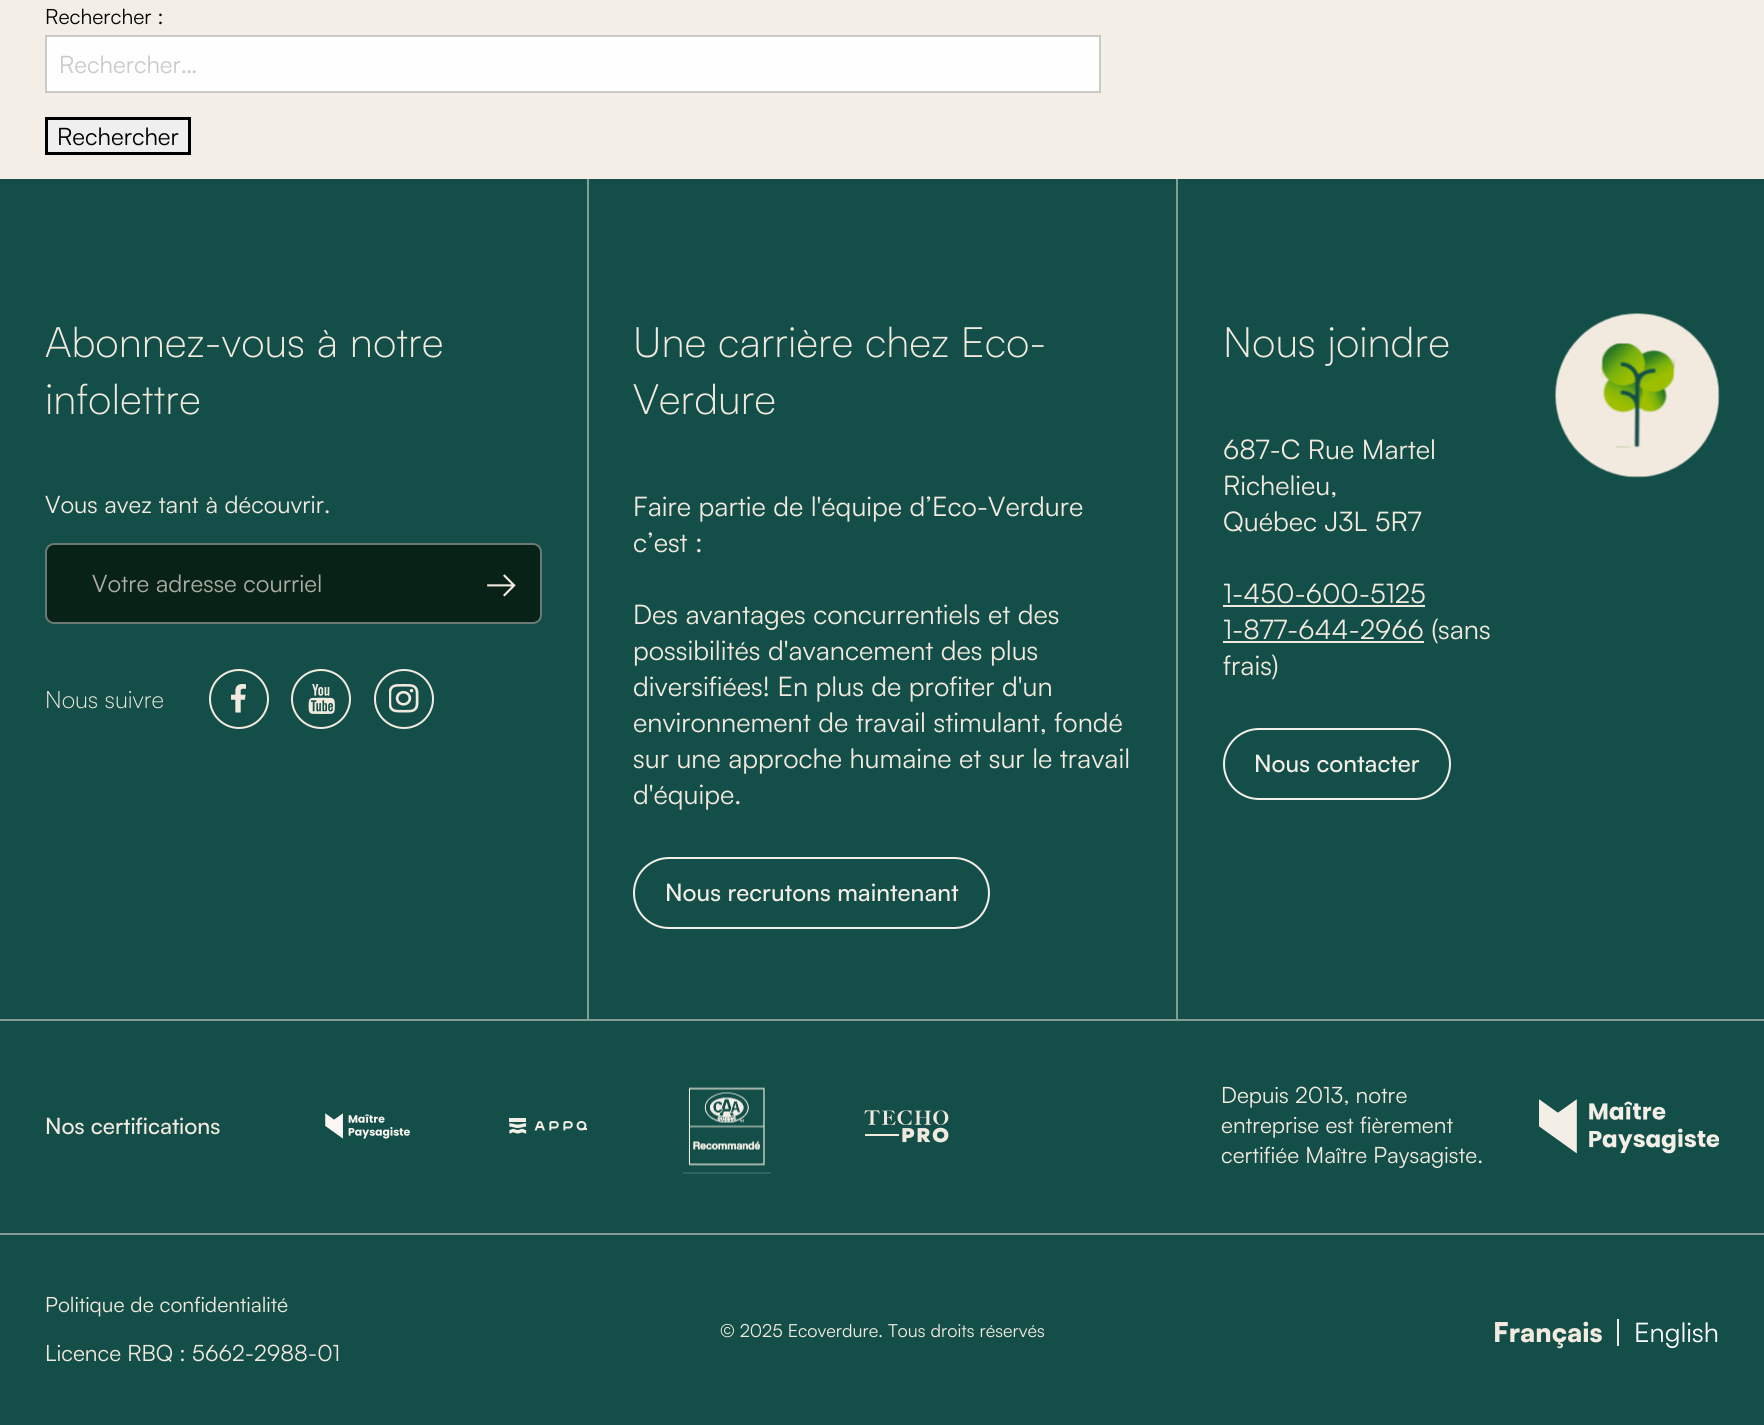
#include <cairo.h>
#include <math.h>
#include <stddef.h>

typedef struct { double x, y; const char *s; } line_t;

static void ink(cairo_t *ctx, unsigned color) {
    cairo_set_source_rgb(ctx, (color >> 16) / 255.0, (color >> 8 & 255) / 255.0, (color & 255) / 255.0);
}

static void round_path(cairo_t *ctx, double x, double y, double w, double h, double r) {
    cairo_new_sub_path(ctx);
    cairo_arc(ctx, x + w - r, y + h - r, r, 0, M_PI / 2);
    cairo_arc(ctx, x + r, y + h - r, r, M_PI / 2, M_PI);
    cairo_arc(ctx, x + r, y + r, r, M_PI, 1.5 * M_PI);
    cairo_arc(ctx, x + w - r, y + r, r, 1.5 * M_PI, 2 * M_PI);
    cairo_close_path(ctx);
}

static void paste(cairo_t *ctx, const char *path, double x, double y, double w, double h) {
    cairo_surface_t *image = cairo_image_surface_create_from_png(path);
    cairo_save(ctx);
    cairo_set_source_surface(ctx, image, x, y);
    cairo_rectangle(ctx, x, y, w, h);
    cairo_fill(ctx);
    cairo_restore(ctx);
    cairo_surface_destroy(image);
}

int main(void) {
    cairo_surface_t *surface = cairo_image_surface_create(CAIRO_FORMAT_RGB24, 1764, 1425);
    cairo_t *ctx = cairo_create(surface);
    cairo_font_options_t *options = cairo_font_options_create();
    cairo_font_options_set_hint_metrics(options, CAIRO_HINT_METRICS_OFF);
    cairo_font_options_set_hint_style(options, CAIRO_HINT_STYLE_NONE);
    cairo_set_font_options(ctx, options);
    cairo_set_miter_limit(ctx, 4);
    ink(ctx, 0xF3EEE6);
    cairo_paint(ctx);
    cairo_select_font_face(ctx, "Satoshi", CAIRO_FONT_SLANT_NORMAL, CAIRO_FONT_WEIGHT_NORMAL);
    cairo_set_font_size(ctx, 21);
    ink(ctx, 0x0A0A0A);
    cairo_move_to(ctx, 45, 24);
    cairo_show_text(ctx, "Rechercher :");
    ink(ctx, 0xFEFEFE);
    cairo_rectangle(ctx, 46, 36, 1054, 56);
    cairo_fill_preserve(ctx);
    ink(ctx, 0xCACACA);
    cairo_stroke(ctx);
    cairo_set_font_size(ctx, 24);
    cairo_move_to(ctx, 59, 73);
    cairo_show_text(ctx, "Rechercher…");
    ink(ctx, 0xEFEFEF);
    cairo_rectangle(ctx, 46.5, 118.5, 143, 35);
    cairo_fill_preserve(ctx);
    ink(ctx, 0x000000);
    cairo_set_line_width(ctx, 3);
    cairo_stroke(ctx);
    cairo_move_to(ctx, 57, 145);
    cairo_show_text(ctx, "Rechercher");
    ink(ctx, 0x134F48);
    cairo_rectangle(ctx, 0, 179, 1764, 1246);
    cairo_fill(ctx);
    ink(ctx, 0x839D94);
    cairo_rectangle(ctx, 587, 179, 2, 840);
    cairo_fill(ctx);
    cairo_select_font_face(ctx, "Satoshi Light", CAIRO_FONT_SLANT_NORMAL, CAIRO_FONT_WEIGHT_NORMAL);
    cairo_set_font_size(ctx, 42);
    ink(ctx, 0xF2EADF);
    cairo_move_to(ctx, 45, 357);
    cairo_show_text(ctx, "Abonnez-vous à notre");
    cairo_move_to(ctx, 45, 414);
    cairo_show_text(ctx, "infolettre");
    cairo_select_font_face(ctx, "Satoshi", CAIRO_FONT_SLANT_NORMAL, CAIRO_FONT_WEIGHT_NORMAL);
    cairo_set_font_size(ctx, 24);
    cairo_move_to(ctx, 45, 513);
    cairo_show_text(ctx, "Vous avez tant à découvrir.");
    ink(ctx, 0x092218);
    round_path(ctx, 45, 543, 497, 81, 9);
    cairo_fill(ctx);
    round_path(ctx, 46, 544, 495, 79, 8);
    cairo_set_source_rgba(ctx, 1, 1, 1, 0.4);
    cairo_set_line_width(ctx, 2);
    cairo_stroke(ctx);
    ink(ctx, 0xACAEA3);
    cairo_move_to(ctx, 92, 592);
    cairo_show_text(ctx, "Votre adresse courriel");
    cairo_set_font_size(ctx, 36);
    ink(ctx, 0xF2EADF);
    cairo_move_to(ctx, 485, 596);
    cairo_show_text(ctx, "→");
    cairo_select_font_face(ctx, "Satoshi Light", CAIRO_FONT_SLANT_NORMAL, CAIRO_FONT_WEIGHT_NORMAL);
    cairo_set_font_size(ctx, 24);
    cairo_move_to(ctx, 45, 708);
    cairo_show_text(ctx, "Nous suivre");
    cairo_new_path(ctx);
    cairo_arc(ctx, 239, 699, 29, 0, 2 * M_PI);
    cairo_stroke(ctx);
    paste(ctx, "media/1.png", 231, 684, 15, 29);
    cairo_arc(ctx, 321, 699, 29, 0, 2 * M_PI);
    cairo_stroke(ctx);
    paste(ctx, "media/2.png", 308, 684, 27, 30);
    cairo_arc(ctx, 404, 699, 29, 0, 2 * M_PI);
    cairo_stroke(ctx);
    paste(ctx, "media/3.png", 389, 684, 30, 29);
    cairo_set_font_size(ctx, 42);
    cairo_move_to(ctx, 633, 357);
    cairo_show_text(ctx, "Une carrière chez Eco-");
    cairo_move_to(ctx, 633, 414);
    cairo_show_text(ctx, "Verdure");
    cairo_select_font_face(ctx, "Satoshi", CAIRO_FONT_SLANT_NORMAL, CAIRO_FONT_WEIGHT_NORMAL);
    cairo_set_font_size(ctx, 27);
    {
        static const line_t items[] = {
            {633, 516, "Faire partie de l'équipe d’Eco-Verdure"},
            {633, 552, "c’est :"},
            {633, 624, "Des avantages concurrentiels et des"},
            {633, 660, "possibilités d'avancement des plus"},
            {633, 696, "diversifiées! En plus de profiter d'un"},
            {633, 732, "environnement de travail stimulant, fondé"},
            {633, 768, "sur une approche humaine et sur le travail"},
            {633, 804, "d'équipe."},
        };
        for (size_t i = 0; i < sizeof items / sizeof *items; i++) {
            cairo_move_to(ctx, items[i].x, items[i].y);
            cairo_show_text(ctx, items[i].s);
        }
    }
    round_path(ctx, 634, 858, 355, 70, 35);
    ink(ctx, 0xF3EEE6);
    cairo_stroke(ctx);
    cairo_select_font_face(ctx, "Satoshi Medium", CAIRO_FONT_SLANT_NORMAL, CAIRO_FONT_WEIGHT_NORMAL);
    cairo_set_font_size(ctx, 24);
    cairo_move_to(ctx, 665, 901);
    cairo_show_text(ctx, "Nous recrutons maintenant");
    ink(ctx, 0x839D94);
    cairo_rectangle(ctx, 1176, 179, 2, 840);
    cairo_fill(ctx);
    cairo_select_font_face(ctx, "Satoshi Light", CAIRO_FONT_SLANT_NORMAL, CAIRO_FONT_WEIGHT_NORMAL);
    cairo_set_font_size(ctx, 42);
    ink(ctx, 0xF2EADF);
    cairo_move_to(ctx, 1223, 357);
    cairo_show_text(ctx, "Nous joindre");
    cairo_select_font_face(ctx, "Satoshi", CAIRO_FONT_SLANT_NORMAL, CAIRO_FONT_WEIGHT_NORMAL);
    cairo_set_font_size(ctx, 27);
    {
        static const line_t items[] = {
            {1223, 459, "687-C Rue Martel"},
            {1223, 495, "Richelieu,"},
            {1223, 531, "Québec J3L 5R7"},
            {1223, 603, "1-450-600-5125"},
        };
        for (size_t i = 0; i < sizeof items / sizeof *items; i++) {
            cairo_move_to(ctx, items[i].x, items[i].y);
            cairo_show_text(ctx, items[i].s);
        }
    }
    cairo_rectangle(ctx, 1223, 605, 202, 2);
    cairo_fill(ctx);
    cairo_rectangle(ctx, 1223, 641, 201, 2);
    cairo_fill(ctx);
    cairo_move_to(ctx, 1223, 639);
    cairo_show_text(ctx, "1-877-644-2966 (sans");
    cairo_move_to(ctx, 1223, 675);
    cairo_show_text(ctx, "frais)");
    round_path(ctx, 1224, 729, 226, 70, 35);
    ink(ctx, 0xF3EEE6);
    cairo_stroke(ctx);
    cairo_select_font_face(ctx, "Satoshi Medium", CAIRO_FONT_SLANT_NORMAL, CAIRO_FONT_WEIGHT_NORMAL);
    cairo_set_font_size(ctx, 24);
    cairo_move_to(ctx, 1254, 772);
    cairo_show_text(ctx, "Nous contacter");
    paste(ctx, "media/4.png", 1555, 313, 165, 165);
    ink(ctx, 0x839D94);
    cairo_rectangle(ctx, 0, 1019, 1764, 2);
    cairo_fill(ctx);
    cairo_set_font_size(ctx, 22.5);
    ink(ctx, 0xF2EADF);
    cairo_move_to(ctx, 45, 1134);
    cairo_show_text(ctx, "Nos certifications");
    paste(ctx, "media/5.png", 325, 1113, 85, 26);
    paste(ctx, "media/6.png", 509, 1118, 78, 16);
    paste(ctx, "media/7.png", 683, 1087, 88, 87);
    paste(ctx, "media/8.png", 864, 1110, 85, 33);
    cairo_select_font_face(ctx, "Satoshi", CAIRO_FONT_SLANT_NORMAL, CAIRO_FONT_WEIGHT_NORMAL);
    {
        static const line_t items[] = {
            {1221, 1103, "Depuis 2013, notre"},
            {1221, 1133, "entreprise est fièrement"},
            {1221, 1163, "certifiée Maître Paysagiste."},
        };
        for (size_t i = 0; i < sizeof items / sizeof *items; i++) {
            cairo_move_to(ctx, items[i].x, items[i].y);
            cairo_show_text(ctx, items[i].s);
        }
    }
    paste(ctx, "media/9.png", 1539, 1099, 180, 55);
    ink(ctx, 0x839D94);
    cairo_rectangle(ctx, 0, 1233, 1764, 2);
    cairo_fill(ctx);
    cairo_set_font_size(ctx, 21);
    ink(ctx, 0xF2EADF);
    cairo_move_to(ctx, 45, 1312);
    cairo_show_text(ctx, "Politique de confidentialité");
    cairo_set_font_size(ctx, 22.5);
    cairo_move_to(ctx, 45, 1361);
    cairo_show_text(ctx, "Licence RBQ : 5662-2988-01");
    cairo_set_font_size(ctx, 18);
    cairo_move_to(ctx, 720, 1337);
    cairo_show_text(ctx, "© 2025 Ecoverdure. Tous droits réservés");
    cairo_select_font_face(ctx, "Satoshi Black", CAIRO_FONT_SLANT_NORMAL, CAIRO_FONT_WEIGHT_NORMAL);
    cairo_set_font_size(ctx, 27);
    cairo_move_to(ctx, 1493, 1342);
    cairo_show_text(ctx, "Français");
    cairo_rectangle(ctx, 1617, 1319, 2, 27);
    cairo_fill(ctx);
    cairo_select_font_face(ctx, "Satoshi", CAIRO_FONT_SLANT_NORMAL, CAIRO_FONT_WEIGHT_NORMAL);
    ink(ctx, 0xFFFFFF);
    cairo_move_to(ctx, 1634, 1342);
    cairo_show_text(ctx, "English");
    cairo_surface_write_to_png(surface, "image.png");
    cairo_font_options_destroy(options);
    cairo_destroy(ctx);
    cairo_surface_destroy(surface);
    return 0;
}
